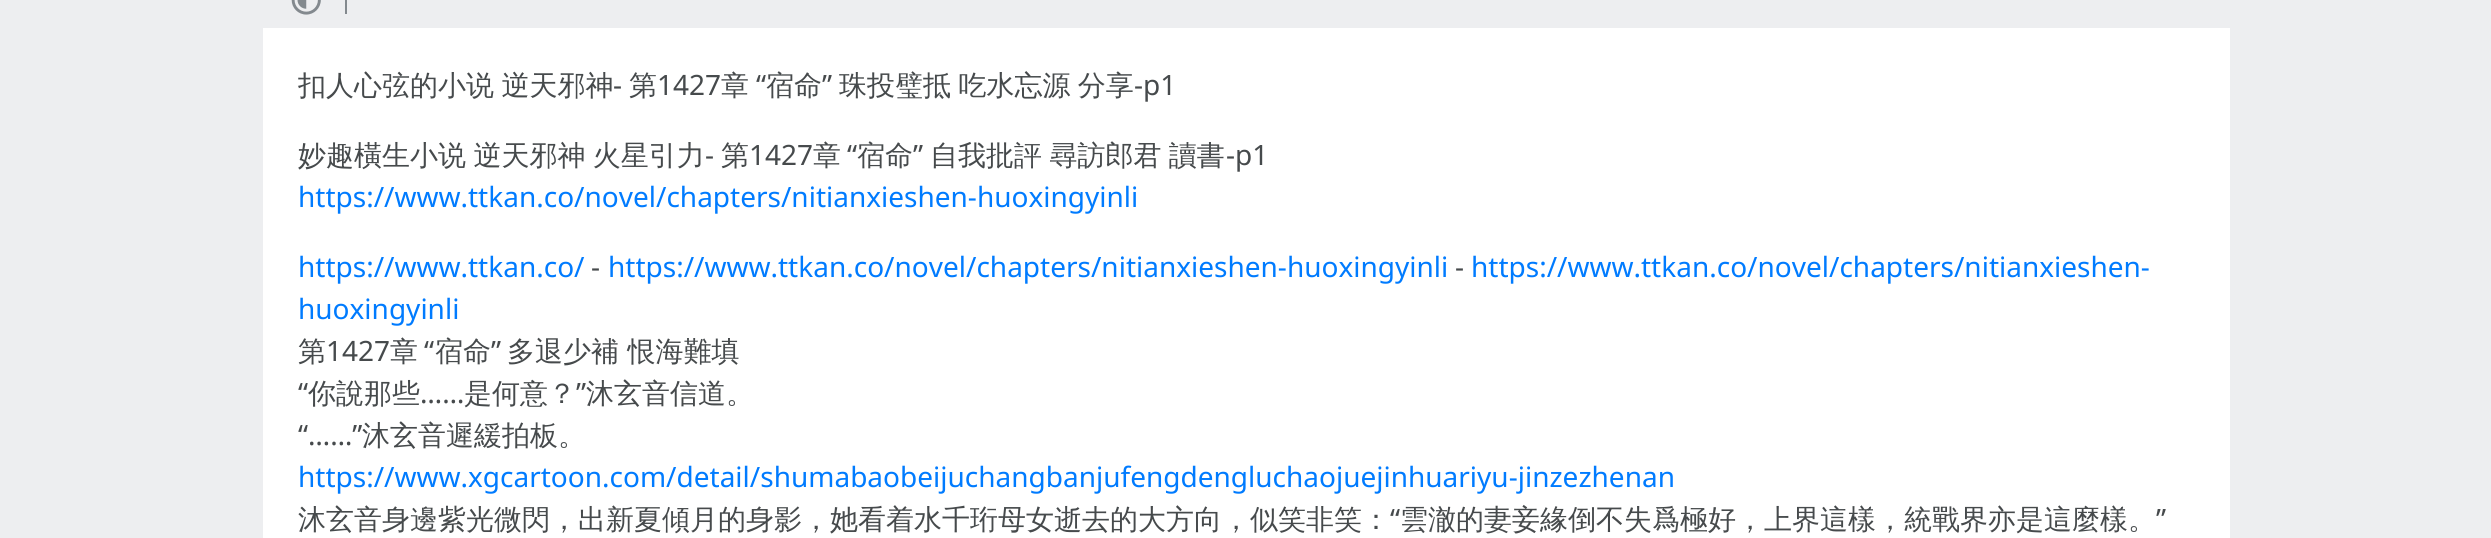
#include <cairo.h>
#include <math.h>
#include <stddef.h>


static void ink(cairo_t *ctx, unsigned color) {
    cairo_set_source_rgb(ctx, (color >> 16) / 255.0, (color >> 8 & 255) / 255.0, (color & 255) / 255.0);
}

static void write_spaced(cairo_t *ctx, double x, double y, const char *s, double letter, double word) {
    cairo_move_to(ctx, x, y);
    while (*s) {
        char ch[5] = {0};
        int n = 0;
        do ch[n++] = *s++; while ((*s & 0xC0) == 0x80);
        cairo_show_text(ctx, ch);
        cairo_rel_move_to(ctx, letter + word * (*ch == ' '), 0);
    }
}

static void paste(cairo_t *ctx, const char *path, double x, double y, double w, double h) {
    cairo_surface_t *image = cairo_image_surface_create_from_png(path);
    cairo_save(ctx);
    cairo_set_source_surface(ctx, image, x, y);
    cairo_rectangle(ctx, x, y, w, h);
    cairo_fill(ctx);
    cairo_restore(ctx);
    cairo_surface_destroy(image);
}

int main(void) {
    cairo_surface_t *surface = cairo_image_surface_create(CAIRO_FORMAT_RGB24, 2491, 538);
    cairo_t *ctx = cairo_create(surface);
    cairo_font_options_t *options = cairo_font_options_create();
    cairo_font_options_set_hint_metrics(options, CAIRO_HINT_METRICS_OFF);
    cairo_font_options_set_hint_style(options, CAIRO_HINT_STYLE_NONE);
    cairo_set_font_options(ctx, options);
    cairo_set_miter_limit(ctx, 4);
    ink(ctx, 0xEDEEF0);
    cairo_paint(ctx);
    paste(ctx, "media/1.png", 291, 0, 30, 15);
    ink(ctx, 0x83898E);
    cairo_rectangle(ctx, 345, 0, 2, 14);
    cairo_fill(ctx);
    ink(ctx, 0xFFFFFF);
    cairo_rectangle(ctx, 263, 28, 1967, 510);
    cairo_fill(ctx);
    cairo_select_font_face(ctx, "WenQuanYi Zen Hei Medium", CAIRO_FONT_SLANT_NORMAL, CAIRO_FONT_WEIGHT_NORMAL);
    cairo_set_font_size(ctx, 28);
    ink(ctx, 0x464A4C);
    write_spaced(ctx, 298, 95, "扣人心弦的小说 逆天邪神", 0, -1);
    cairo_select_font_face(ctx, "Noto Sans", CAIRO_FONT_SLANT_NORMAL, CAIRO_FONT_WEIGHT_NORMAL);
    cairo_move_to(ctx, 613, 95);
    cairo_show_text(ctx, "-");
    cairo_select_font_face(ctx, "WenQuanYi Zen Hei Medium", CAIRO_FONT_SLANT_NORMAL, CAIRO_FONT_WEIGHT_NORMAL);
    cairo_move_to(ctx, 629, 95);
    cairo_show_text(ctx, "第");
    cairo_select_font_face(ctx, "Noto Sans", CAIRO_FONT_SLANT_NORMAL, CAIRO_FONT_WEIGHT_NORMAL);
    cairo_move_to(ctx, 657, 95);
    cairo_show_text(ctx, "1427");
    cairo_select_font_face(ctx, "WenQuanYi Zen Hei Medium", CAIRO_FONT_SLANT_NORMAL, CAIRO_FONT_WEIGHT_NORMAL);
    cairo_move_to(ctx, 721, 95);
    cairo_show_text(ctx, "章");
    cairo_select_font_face(ctx, "Noto Sans", CAIRO_FONT_SLANT_NORMAL, CAIRO_FONT_WEIGHT_NORMAL);
    cairo_move_to(ctx, 756, 95);
    cairo_show_text(ctx, "“");
    cairo_select_font_face(ctx, "WenQuanYi Zen Hei Medium", CAIRO_FONT_SLANT_NORMAL, CAIRO_FONT_WEIGHT_NORMAL);
    cairo_move_to(ctx, 766, 95);
    cairo_show_text(ctx, "宿命");
    cairo_select_font_face(ctx, "Noto Sans", CAIRO_FONT_SLANT_NORMAL, CAIRO_FONT_WEIGHT_NORMAL);
    cairo_move_to(ctx, 822, 95);
    cairo_show_text(ctx, "”");
    cairo_select_font_face(ctx, "WenQuanYi Zen Hei Medium", CAIRO_FONT_SLANT_NORMAL, CAIRO_FONT_WEIGHT_NORMAL);
    write_spaced(ctx, 839, 95, "珠投璧抵 吃水忘源 分享", 0, -1);
    cairo_select_font_face(ctx, "Noto Sans", CAIRO_FONT_SLANT_NORMAL, CAIRO_FONT_WEIGHT_NORMAL);
    cairo_move_to(ctx, 1134, 95);
    cairo_show_text(ctx, "-p1");
    cairo_select_font_face(ctx, "WenQuanYi Zen Hei Medium", CAIRO_FONT_SLANT_NORMAL, CAIRO_FONT_WEIGHT_NORMAL);
    write_spaced(ctx, 298, 165, "妙趣橫生小说 逆天邪神 火星引力", 0, -1);
    cairo_select_font_face(ctx, "Noto Sans", CAIRO_FONT_SLANT_NORMAL, CAIRO_FONT_WEIGHT_NORMAL);
    cairo_move_to(ctx, 705, 165);
    cairo_show_text(ctx, "-");
    cairo_select_font_face(ctx, "WenQuanYi Zen Hei Medium", CAIRO_FONT_SLANT_NORMAL, CAIRO_FONT_WEIGHT_NORMAL);
    cairo_move_to(ctx, 721, 165);
    cairo_show_text(ctx, "第");
    cairo_select_font_face(ctx, "Noto Sans", CAIRO_FONT_SLANT_NORMAL, CAIRO_FONT_WEIGHT_NORMAL);
    cairo_move_to(ctx, 749, 165);
    cairo_show_text(ctx, "1427");
    cairo_select_font_face(ctx, "WenQuanYi Zen Hei Medium", CAIRO_FONT_SLANT_NORMAL, CAIRO_FONT_WEIGHT_NORMAL);
    cairo_move_to(ctx, 813, 165);
    cairo_show_text(ctx, "章");
    cairo_select_font_face(ctx, "Noto Sans", CAIRO_FONT_SLANT_NORMAL, CAIRO_FONT_WEIGHT_NORMAL);
    cairo_move_to(ctx, 847, 165);
    cairo_show_text(ctx, "“");
    cairo_select_font_face(ctx, "WenQuanYi Zen Hei Medium", CAIRO_FONT_SLANT_NORMAL, CAIRO_FONT_WEIGHT_NORMAL);
    cairo_move_to(ctx, 857, 165);
    cairo_show_text(ctx, "宿命");
    cairo_select_font_face(ctx, "Noto Sans", CAIRO_FONT_SLANT_NORMAL, CAIRO_FONT_WEIGHT_NORMAL);
    cairo_move_to(ctx, 913, 165);
    cairo_show_text(ctx, "”");
    cairo_select_font_face(ctx, "WenQuanYi Zen Hei Medium", CAIRO_FONT_SLANT_NORMAL, CAIRO_FONT_WEIGHT_NORMAL);
    write_spaced(ctx, 930, 165, "自我批評 尋訪郎君 讀書", 0, -1);
    cairo_select_font_face(ctx, "Noto Sans", CAIRO_FONT_SLANT_NORMAL, CAIRO_FONT_WEIGHT_NORMAL);
    cairo_move_to(ctx, 1226, 165);
    cairo_show_text(ctx, "-p1");
    ink(ctx, 0x007BFF);
    cairo_move_to(ctx, 298, 207);
    cairo_show_text(ctx, "https://www.ttkan.co/novel/chapters/nitianxieshen-huoxingyinli");
    cairo_move_to(ctx, 298, 277);
    cairo_show_text(ctx, "https://www.ttkan.co/");
    ink(ctx, 0x464A4C);
    cairo_move_to(ctx, 591, 277);
    cairo_show_text(ctx, "-");
    ink(ctx, 0x007BFF);
    cairo_move_to(ctx, 608, 277);
    cairo_show_text(ctx, "https://www.ttkan.co/novel/chapters/nitianxieshen-huoxingyinli");
    ink(ctx, 0x464A4C);
    cairo_move_to(ctx, 1455, 277);
    cairo_show_text(ctx, "-");
    ink(ctx, 0x007BFF);
    cairo_move_to(ctx, 1471, 277);
    cairo_show_text(ctx, "https://www.ttkan.co/novel/chapters/nitianxieshen-");
    cairo_move_to(ctx, 298, 319);
    cairo_show_text(ctx, "huoxingyinli");
    cairo_select_font_face(ctx, "WenQuanYi Zen Hei Medium", CAIRO_FONT_SLANT_NORMAL, CAIRO_FONT_WEIGHT_NORMAL);
    ink(ctx, 0x464A4C);
    cairo_move_to(ctx, 298, 361);
    cairo_show_text(ctx, "第");
    cairo_select_font_face(ctx, "Noto Sans", CAIRO_FONT_SLANT_NORMAL, CAIRO_FONT_WEIGHT_NORMAL);
    cairo_move_to(ctx, 326, 361);
    cairo_show_text(ctx, "1427");
    cairo_select_font_face(ctx, "WenQuanYi Zen Hei Medium", CAIRO_FONT_SLANT_NORMAL, CAIRO_FONT_WEIGHT_NORMAL);
    cairo_move_to(ctx, 390, 361);
    cairo_show_text(ctx, "章");
    cairo_select_font_face(ctx, "Noto Sans", CAIRO_FONT_SLANT_NORMAL, CAIRO_FONT_WEIGHT_NORMAL);
    cairo_move_to(ctx, 424, 361);
    cairo_show_text(ctx, "“");
    cairo_select_font_face(ctx, "WenQuanYi Zen Hei Medium", CAIRO_FONT_SLANT_NORMAL, CAIRO_FONT_WEIGHT_NORMAL);
    cairo_move_to(ctx, 435, 361);
    cairo_show_text(ctx, "宿命");
    cairo_select_font_face(ctx, "Noto Sans", CAIRO_FONT_SLANT_NORMAL, CAIRO_FONT_WEIGHT_NORMAL);
    cairo_move_to(ctx, 491, 361);
    cairo_show_text(ctx, "”");
    cairo_select_font_face(ctx, "WenQuanYi Zen Hei Medium", CAIRO_FONT_SLANT_NORMAL, CAIRO_FONT_WEIGHT_NORMAL);
    cairo_move_to(ctx, 507, 361);
    cairo_show_text(ctx, "多退少補 恨海難填");
    cairo_select_font_face(ctx, "Noto Sans", CAIRO_FONT_SLANT_NORMAL, CAIRO_FONT_WEIGHT_NORMAL);
    cairo_move_to(ctx, 298, 403);
    cairo_show_text(ctx, "“");
    cairo_select_font_face(ctx, "WenQuanYi Zen Hei Medium", CAIRO_FONT_SLANT_NORMAL, CAIRO_FONT_WEIGHT_NORMAL);
    cairo_move_to(ctx, 308, 403);
    cairo_show_text(ctx, "你說那些");
    cairo_move_to(ctx, 464, 403);
    cairo_show_text(ctx, "是何意？");
    cairo_select_font_face(ctx, "Noto Sans", CAIRO_FONT_SLANT_NORMAL, CAIRO_FONT_WEIGHT_NORMAL);
    cairo_move_to(ctx, 576, 403);
    cairo_show_text(ctx, "”");
    cairo_select_font_face(ctx, "WenQuanYi Zen Hei Medium", CAIRO_FONT_SLANT_NORMAL, CAIRO_FONT_WEIGHT_NORMAL);
    cairo_move_to(ctx, 586, 403);
    cairo_show_text(ctx, "沐玄音信道。");
    cairo_select_font_face(ctx, "Noto Sans", CAIRO_FONT_SLANT_NORMAL, CAIRO_FONT_WEIGHT_NORMAL);
    cairo_move_to(ctx, 420, 403);
    cairo_show_text(ctx, "……");
    cairo_move_to(ctx, 298, 445);
    cairo_show_text(ctx, "“……”");
    cairo_select_font_face(ctx, "WenQuanYi Zen Hei Medium", CAIRO_FONT_SLANT_NORMAL, CAIRO_FONT_WEIGHT_NORMAL);
    cairo_move_to(ctx, 362, 445);
    cairo_show_text(ctx, "沐玄音遲緩拍板。");
    cairo_select_font_face(ctx, "Noto Sans", CAIRO_FONT_SLANT_NORMAL, CAIRO_FONT_WEIGHT_NORMAL);
    ink(ctx, 0x007BFF);
    cairo_move_to(ctx, 298, 487);
    cairo_show_text(ctx, "https://www.xgcartoon.com/detail/shumabaobeijuchangbanjufengdengluchaojuejinhuariyu-jinzezhenan");
    cairo_select_font_face(ctx, "WenQuanYi Zen Hei Medium", CAIRO_FONT_SLANT_NORMAL, CAIRO_FONT_WEIGHT_NORMAL);
    ink(ctx, 0x464A4C);
    cairo_move_to(ctx, 298, 529);
    cairo_show_text(ctx, "沐玄音身邊紫光微閃，出新夏傾月的身影，她看着水千珩母女逝去的大方向，似笑非笑：");
    cairo_select_font_face(ctx, "Noto Sans", CAIRO_FONT_SLANT_NORMAL, CAIRO_FONT_WEIGHT_NORMAL);
    cairo_move_to(ctx, 1390, 529);
    cairo_show_text(ctx, "“");
    cairo_select_font_face(ctx, "WenQuanYi Zen Hei Medium", CAIRO_FONT_SLANT_NORMAL, CAIRO_FONT_WEIGHT_NORMAL);
    cairo_move_to(ctx, 1400, 529);
    cairo_show_text(ctx, "雲澈的妻妾緣倒不失爲極好，上界這樣，統戰界亦是這麼樣。");
    cairo_select_font_face(ctx, "Noto Sans", CAIRO_FONT_SLANT_NORMAL, CAIRO_FONT_WEIGHT_NORMAL);
    cairo_move_to(ctx, 2156, 529);
    cairo_show_text(ctx, "”");
    cairo_surface_write_to_png(surface, "image.png");
    cairo_font_options_destroy(options);
    cairo_destroy(ctx);
    cairo_surface_destroy(surface);
    return 0;
}
